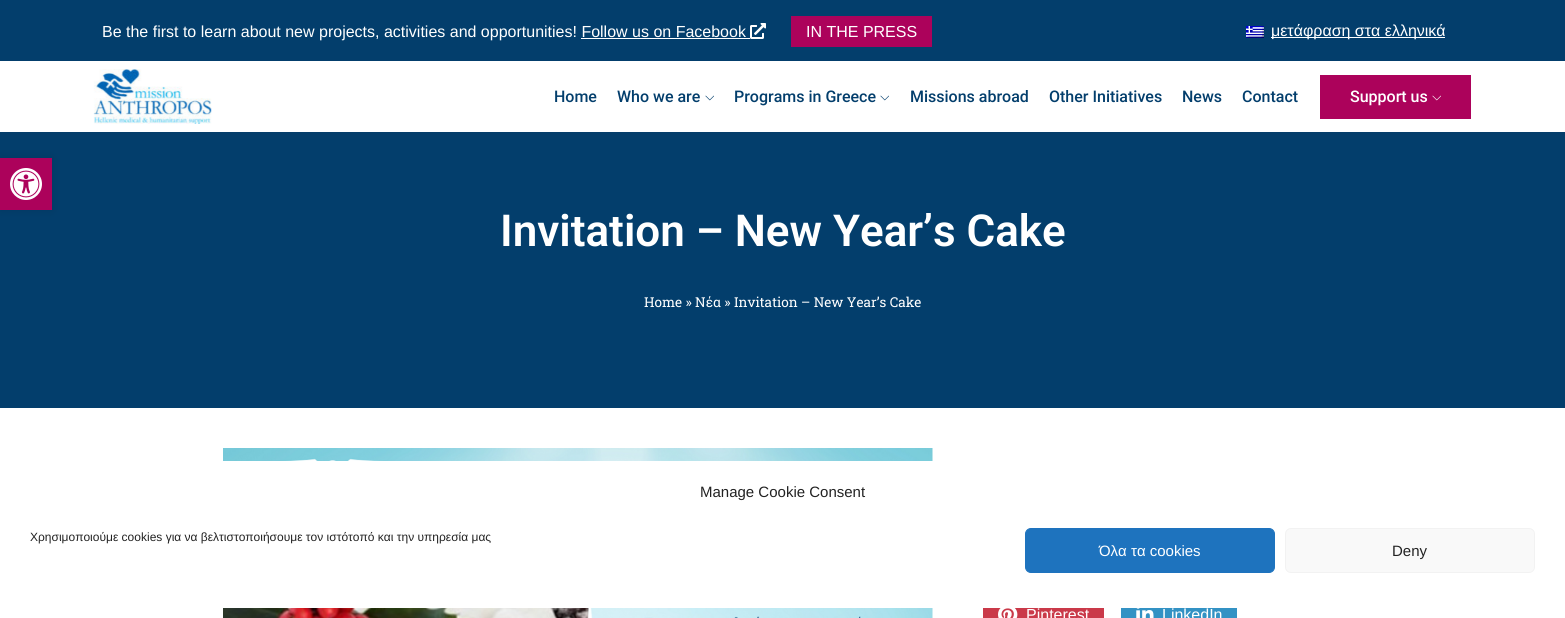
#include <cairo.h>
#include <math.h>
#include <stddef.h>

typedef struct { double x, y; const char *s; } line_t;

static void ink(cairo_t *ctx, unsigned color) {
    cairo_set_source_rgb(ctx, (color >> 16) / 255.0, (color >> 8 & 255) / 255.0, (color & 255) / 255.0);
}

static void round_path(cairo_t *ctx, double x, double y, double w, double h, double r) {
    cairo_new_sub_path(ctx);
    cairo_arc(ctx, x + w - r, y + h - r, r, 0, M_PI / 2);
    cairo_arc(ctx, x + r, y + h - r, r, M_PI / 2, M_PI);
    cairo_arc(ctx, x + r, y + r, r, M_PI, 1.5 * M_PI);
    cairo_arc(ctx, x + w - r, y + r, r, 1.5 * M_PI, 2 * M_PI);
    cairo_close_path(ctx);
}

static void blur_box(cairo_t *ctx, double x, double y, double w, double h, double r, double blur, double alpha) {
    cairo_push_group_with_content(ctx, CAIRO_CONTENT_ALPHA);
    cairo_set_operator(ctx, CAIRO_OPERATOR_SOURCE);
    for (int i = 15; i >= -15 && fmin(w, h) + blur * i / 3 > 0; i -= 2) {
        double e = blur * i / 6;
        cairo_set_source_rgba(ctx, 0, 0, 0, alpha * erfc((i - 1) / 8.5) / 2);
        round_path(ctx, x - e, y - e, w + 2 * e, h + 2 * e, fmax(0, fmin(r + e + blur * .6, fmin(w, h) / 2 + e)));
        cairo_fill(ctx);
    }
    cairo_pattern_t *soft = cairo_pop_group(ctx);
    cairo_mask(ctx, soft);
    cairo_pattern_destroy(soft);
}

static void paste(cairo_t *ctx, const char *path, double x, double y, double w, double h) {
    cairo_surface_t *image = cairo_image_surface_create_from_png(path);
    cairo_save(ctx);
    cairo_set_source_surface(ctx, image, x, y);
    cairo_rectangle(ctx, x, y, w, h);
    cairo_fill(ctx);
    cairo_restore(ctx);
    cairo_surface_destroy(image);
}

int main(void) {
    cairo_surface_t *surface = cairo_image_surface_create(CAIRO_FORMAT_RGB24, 1565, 618);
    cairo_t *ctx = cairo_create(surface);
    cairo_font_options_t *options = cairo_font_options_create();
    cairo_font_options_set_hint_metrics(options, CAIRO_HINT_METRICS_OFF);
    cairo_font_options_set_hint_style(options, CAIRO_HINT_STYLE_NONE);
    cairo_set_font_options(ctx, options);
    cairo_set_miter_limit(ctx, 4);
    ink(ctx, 0xFFFFFF);
    cairo_paint(ctx);
    ink(ctx, 0x033E6C);
    cairo_rectangle(ctx, 0, 132, 1565, 276);
    cairo_fill(ctx);
    ink(ctx, 0x000000);
    blur_box(ctx, 0, 158, 52, 52, 0, 5, 0.1);
    ink(ctx, 0xAC025B);
    cairo_rectangle(ctx, 0, 158, 52, 52);
    cairo_fill(ctx);
    paste(ctx, "media/1.png", 10, 168, 32, 32);
    ink(ctx, 0x243242);
    blur_box(ctx, 0, 63, 1565, 71, 0, 5, 0.07);
    ink(ctx, 0x033E6C);
    cairo_rectangle(ctx, 0, 0, 1565, 61);
    cairo_fill(ctx);
    ink(ctx, 0xFFFFFF);
    cairo_rectangle(ctx, 581, 38, 169, 1);
    cairo_fill(ctx);
    paste(ctx, "media/2.png", 750, 23, 16, 16);
    cairo_select_font_face(ctx, "Liberation Sans", CAIRO_FONT_SLANT_NORMAL, CAIRO_FONT_WEIGHT_NORMAL);
    cairo_set_font_size(ctx, 16);
    cairo_move_to(ctx, 102, 37);
    cairo_show_text(ctx, "Be the first to learn about new projects, activities and opportunities! Follow us on Facebook");
    ink(ctx, 0xAC025B);
    cairo_rectangle(ctx, 791, 16, 141, 31);
    cairo_fill(ctx);
    ink(ctx, 0xFFFFFF);
    cairo_move_to(ctx, 806, 37);
    cairo_show_text(ctx, "IN THE PRESS");
    paste(ctx, "media/3.png", 1246, 26, 18, 12);
    cairo_rectangle(ctx, 1271, 37, 174, 1);
    cairo_fill(ctx);
    cairo_move_to(ctx, 1271, 36);
    cairo_show_text(ctx, "μετάφραση στα ελληνικά");
    cairo_rectangle(ctx, 0, 61, 1565, 71);
    cairo_fill(ctx);
    paste(ctx, "media/4.png", 93, 69, 119, 55);
    cairo_select_font_face(ctx, "Roboto Medium", CAIRO_FONT_SLANT_NORMAL, CAIRO_FONT_WEIGHT_NORMAL);
    ink(ctx, 0x033E6C);
    cairo_move_to(ctx, 554, 102);
    cairo_show_text(ctx, "Home");
    cairo_move_to(ctx, 617, 102);
    cairo_show_text(ctx, "Who we are");
    paste(ctx, "media/5.png", 705, 95, 9, 6);
    cairo_move_to(ctx, 734, 102);
    cairo_show_text(ctx, "Programs in Greece");
    paste(ctx, "media/5.png", 880, 95, 9, 6);
    {
        static const line_t items[] = {
            {910, 102, "Missions abroad"},
            {1049, 102, "Other Initiatives"},
            {1182, 102, "News"},
            {1242, 102, "Contact"},
        };
        for (size_t i = 0; i < sizeof items / sizeof *items; i++) {
            cairo_move_to(ctx, items[i].x, items[i].y);
            cairo_show_text(ctx, items[i].s);
        }
    }
    ink(ctx, 0xAC025B);
    cairo_rectangle(ctx, 1320, 75, 151, 44);
    cairo_fill(ctx);
    ink(ctx, 0xFFFFFF);
    cairo_move_to(ctx, 1350, 102);
    cairo_show_text(ctx, "Support us");
    paste(ctx, "media/6.png", 1432, 95, 9, 6);
    cairo_select_font_face(ctx, "Roboto SemiBold", CAIRO_FONT_SLANT_NORMAL, CAIRO_FONT_WEIGHT_NORMAL);
    cairo_set_font_size(ctx, 44);
    cairo_move_to(ctx, 500, 246);
    cairo_show_text(ctx, "Invitation – New Year’s Cake");
    cairo_select_font_face(ctx, "Roboto Slab", CAIRO_FONT_SLANT_NORMAL, CAIRO_FONT_WEIGHT_NORMAL);
    cairo_set_font_size(ctx, 13.6);
    cairo_move_to(ctx, 644, 307);
    cairo_show_text(ctx, "Home » Νέα » Invitation – New Year’s Cake");
    paste(ctx, "media/7.png", 223, 448, 710, 170);
    ink(ctx, 0xCA3949);
    cairo_rectangle(ctx, 983, 608, 121, 10);
    cairo_fill(ctx);
    paste(ctx, "media/8.png", 998, 608, 20, 10);
    cairo_select_font_face(ctx, "Liberation Sans", CAIRO_FONT_SLANT_NORMAL, CAIRO_FONT_WEIGHT_NORMAL);
    cairo_set_font_size(ctx, 16);
    ink(ctx, 0xFFFFFF);
    cairo_move_to(ctx, 1026, 620);
    cairo_show_text(ctx, "Pinterest");
    ink(ctx, 0x3392C4);
    cairo_rectangle(ctx, 1121, 608, 116, 10);
    cairo_fill(ctx);
    paste(ctx, "media/9.png", 1136, 608, 18, 10);
    ink(ctx, 0xFFFFFF);
    cairo_move_to(ctx, 1162, 620);
    cairo_show_text(ctx, "LinkedIn");
    round_path(ctx, 10, 461, 1545, 147, 12);
    cairo_fill(ctx);
    cairo_set_font_size(ctx, 15);
    ink(ctx, 0x222222);
    cairo_move_to(ctx, 700, 497);
    cairo_show_text(ctx, "Manage Cookie Consent");
    cairo_set_font_size(ctx, 12);
    cairo_move_to(ctx, 30, 541);
    cairo_show_text(ctx, "Χρησιμοποιούμε cookies για να βελτιστοποιήσουμε τον ιστότοπό και την υπηρεσία μας");
    ink(ctx, 0x1E73BE);
    round_path(ctx, 1025.5, 528.5, 249, 44, 5.5);
    cairo_fill_preserve(ctx);
    cairo_set_line_width(ctx, 1);
    cairo_stroke(ctx);
    cairo_set_font_size(ctx, 15);
    ink(ctx, 0xFFFFFF);
    cairo_move_to(ctx, 1099, 556);
    cairo_show_text(ctx, "Όλα τα cookies");
    ink(ctx, 0xF9F9F9);
    round_path(ctx, 1285.5, 528.5, 249, 44, 5.5);
    cairo_fill_preserve(ctx);
    ink(ctx, 0xF2F2F2);
    cairo_stroke(ctx);
    ink(ctx, 0x222222);
    cairo_move_to(ctx, 1392, 556);
    cairo_show_text(ctx, "Deny");
    cairo_surface_write_to_png(surface, "image.png");
    cairo_font_options_destroy(options);
    cairo_destroy(ctx);
    cairo_surface_destroy(surface);
    return 0;
}
